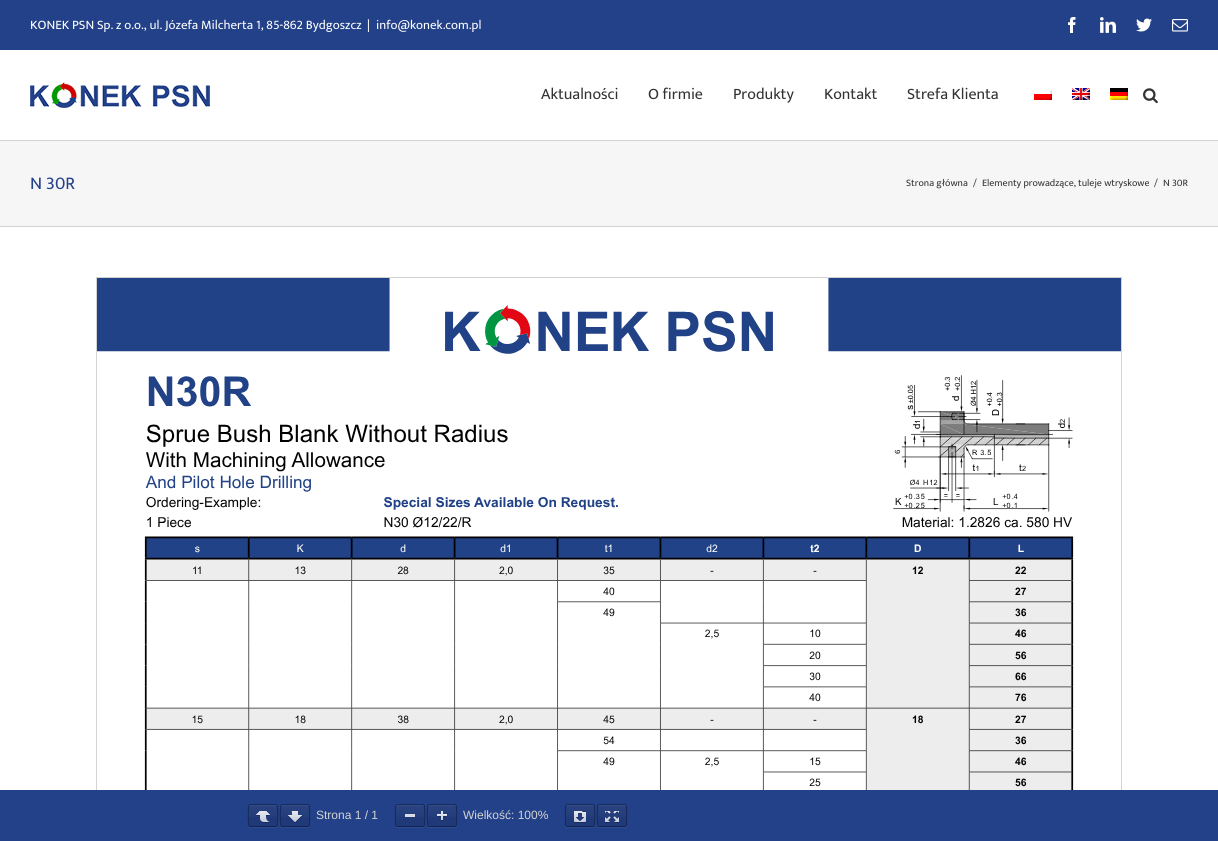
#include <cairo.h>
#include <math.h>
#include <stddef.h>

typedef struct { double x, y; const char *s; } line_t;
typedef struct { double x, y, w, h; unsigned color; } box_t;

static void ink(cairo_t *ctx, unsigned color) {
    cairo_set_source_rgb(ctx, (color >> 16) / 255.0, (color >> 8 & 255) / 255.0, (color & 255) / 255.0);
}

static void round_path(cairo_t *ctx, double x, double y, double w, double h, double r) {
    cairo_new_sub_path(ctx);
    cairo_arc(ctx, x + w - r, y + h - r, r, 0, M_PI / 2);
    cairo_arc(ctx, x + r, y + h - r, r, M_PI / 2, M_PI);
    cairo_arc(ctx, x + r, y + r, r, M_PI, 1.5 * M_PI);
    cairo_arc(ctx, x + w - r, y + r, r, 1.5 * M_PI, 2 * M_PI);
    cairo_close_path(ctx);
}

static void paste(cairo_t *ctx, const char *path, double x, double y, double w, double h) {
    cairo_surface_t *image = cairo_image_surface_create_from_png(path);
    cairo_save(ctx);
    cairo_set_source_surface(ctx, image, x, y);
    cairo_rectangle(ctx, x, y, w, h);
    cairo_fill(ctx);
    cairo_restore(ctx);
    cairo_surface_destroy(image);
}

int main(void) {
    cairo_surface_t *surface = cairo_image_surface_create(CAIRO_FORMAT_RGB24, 1218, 841);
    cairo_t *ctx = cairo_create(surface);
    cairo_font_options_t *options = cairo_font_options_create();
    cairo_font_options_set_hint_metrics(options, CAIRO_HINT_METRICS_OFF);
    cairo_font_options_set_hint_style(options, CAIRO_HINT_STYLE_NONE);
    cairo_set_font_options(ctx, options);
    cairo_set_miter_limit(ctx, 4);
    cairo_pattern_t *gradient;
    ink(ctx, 0xFFFFFF);
    cairo_paint(ctx);
    ink(ctx, 0x234189);
    cairo_rectangle(ctx, 0, 0, 1218, 50);
    cairo_fill(ctx);
    cairo_select_font_face(ctx, "Mukta", CAIRO_FONT_SLANT_NORMAL, CAIRO_FONT_WEIGHT_NORMAL);
    cairo_set_font_size(ctx, 13);
    ink(ctx, 0xFFFFFF);
    {
        static const line_t items[] = {
            {30, 29, "KONEK PSN Sp. z o.o., ul. Józefa Milcherta 1, 85-862 Bydgoszcz"},
            {367, 29, "|"},
            {376, 29, "info@konek.com.pl"},
        };
        for (size_t i = 0; i < sizeof items / sizeof *items; i++) {
            cairo_move_to(ctx, items[i].x, items[i].y);
            cairo_show_text(ctx, items[i].s);
        }
    }
    paste(ctx, "media/1.png", 1068, 17, 8, 16);
    paste(ctx, "media/2.png", 1100, 17, 16, 16);
    paste(ctx, "media/3.png", 1136, 18, 16, 14);
    paste(ctx, "media/4.png", 1172, 19, 16, 13);
    paste(ctx, "media/5.png", 30, 82, 180, 26);
    cairo_set_font_size(ctx, 16);
    ink(ctx, 0x333333);
    {
        static const line_t items[] = {
            {541, 99, "Aktualności"},
            {648, 99, "O firmie"},
            {733, 99, "Produkty"},
            {824, 99, "Kontakt"},
            {907, 99, "Strefa Klienta"},
        };
        for (size_t i = 0; i < sizeof items / sizeof *items; i++) {
            cairo_move_to(ctx, items[i].x, items[i].y);
            cairo_show_text(ctx, items[i].s);
        }
    }
    paste(ctx, "media/6.png", 1034, 90, 18, 10);
    paste(ctx, "media/7.png", 1072, 88, 18, 12);
    paste(ctx, "media/8.png", 1110, 88, 18, 12);
    paste(ctx, "media/9.png", 1143, 88, 15, 16);
    {
        static const box_t items[] = {
            {0, 141, 1218, 85, 0xF6F6F6},
            {0, 140, 1218, 1, 0xD2D3D4},
            {0, 226, 1218, 1, 0xD2D3D4},
        };
        for (size_t i = 0; i < sizeof items / sizeof *items; i++) {
            ink(ctx, items[i].color);
            cairo_rectangle(ctx, items[i].x, items[i].y, items[i].w, items[i].h);
            cairo_fill(ctx);
        }
    }
    cairo_set_font_size(ctx, 18);
    ink(ctx, 0x234189);
    cairo_move_to(ctx, 30, 189);
    cairo_show_text(ctx, "N 30R");
    cairo_set_font_size(ctx, 10);
    ink(ctx, 0x333333);
    {
        static const line_t items[] = {
            {906, 186, "Strona główna"},
            {973, 186, "/"},
            {982, 186, "Elementy prowadzące, tuleje wtryskowe"},
            {1154, 186, "/"},
            {1163, 186, "N 30R"},
        };
        for (size_t i = 0; i < sizeof items / sizeof *items; i++) {
            cairo_move_to(ctx, items[i].x, items[i].y);
            cairo_show_text(ctx, items[i].s);
        }
    }
    ink(ctx, 0xD3D3D3);
    cairo_rectangle(ctx, 96, 277, 1026, 513);
    cairo_fill(ctx);
    paste(ctx, "media/10.png", 97, 278, 1024, 512);
    ink(ctx, 0x234189);
    cairo_rectangle(ctx, 0, 790, 1218, 51);
    cairo_fill(ctx);
    ink(ctx, 0x2E4B8F);
    cairo_new_path(ctx);
    cairo_move_to(ctx, 248, 825);
    cairo_curve_to(ctx, 248, 829, 250.5, 828, 254.5, 828);
    cairo_line_to(ctx, 271.5, 828);
    cairo_curve_to(ctx, 275.5, 828, 278, 829, 278, 825);
    cairo_curve_to(ctx, 278, 826, 277, 827, 276, 827);
    cairo_line_to(ctx, 250, 827);
    cairo_curve_to(ctx, 249, 827, 248, 826, 248, 825);
    cairo_close_path(ctx);
    cairo_fill(ctx);
    ink(ctx, 0x1F3979);
    round_path(ctx, 249, 805, 28, 21, 1);
    cairo_fill(ctx);
    gradient = cairo_pattern_create_linear(263, 805, 263, 826);
    cairo_pattern_add_color_stop_rgba(gradient, 0, 1, 1, 1, 0.05);
    cairo_pattern_add_color_stop_rgba(gradient, 1, 1, 1, 1, 0);
    cairo_set_source(ctx, gradient);
    cairo_pattern_destroy(gradient);
    cairo_rectangle(ctx, 249, 805, 28, 12);
    cairo_fill(ctx);
    ink(ctx, 0x344C86);
    cairo_new_path(ctx);
    cairo_move_to(ctx, 250, 806);
    cairo_line_to(ctx, 277, 806);
    cairo_line_to(ctx, 277, 807);
    cairo_curve_to(ctx, 277, 804, 275, 805, 271.5, 805);
    cairo_line_to(ctx, 254.5, 805);
    cairo_curve_to(ctx, 251, 805, 249, 804, 249, 807);
    cairo_curve_to(ctx, 249, 806, 249, 806, 250, 806);
    cairo_close_path(ctx);
    cairo_fill(ctx);
    cairo_new_path(ctx);
    cairo_move_to(ctx, 249, 805);
    cairo_line_to(ctx, 250, 804.5);
    cairo_line_to(ctx, 276, 804.5);
    cairo_line_to(ctx, 277, 805);
    ink(ctx, 0x182C5D);
    cairo_set_line_width(ctx, 1);
    cairo_stroke(ctx);
    cairo_new_path(ctx);
    cairo_move_to(ctx, 277, 805);
    cairo_curve_to(ctx, 278, 806, 278, 825, 277, 826);
    ink(ctx, 0x162855);
    cairo_stroke(ctx);
    cairo_new_path(ctx);
    cairo_move_to(ctx, 277, 826);
    cairo_line_to(ctx, 276, 826.5);
    cairo_line_to(ctx, 250, 826.5);
    cairo_line_to(ctx, 249, 826);
    ink(ctx, 0x14264F);
    cairo_stroke(ctx);
    cairo_new_path(ctx);
    cairo_move_to(ctx, 249, 826);
    cairo_curve_to(ctx, 248, 825, 248, 806, 249, 805);
    ink(ctx, 0x162855);
    cairo_stroke(ctx);
    paste(ctx, "media/11.png", 256, 811, 14, 12);
    ink(ctx, 0x2E4B8F);
    cairo_new_path(ctx);
    cairo_move_to(ctx, 280, 825);
    cairo_curve_to(ctx, 280, 829, 282.5, 828, 286.5, 828);
    cairo_line_to(ctx, 303.5, 828);
    cairo_curve_to(ctx, 307.5, 828, 310, 829, 310, 825);
    cairo_curve_to(ctx, 310, 826, 309, 827, 308, 827);
    cairo_line_to(ctx, 282, 827);
    cairo_curve_to(ctx, 281, 827, 280, 826, 280, 825);
    cairo_close_path(ctx);
    cairo_fill(ctx);
    ink(ctx, 0x1F3979);
    round_path(ctx, 281, 805, 28, 21, 1);
    cairo_fill(ctx);
    gradient = cairo_pattern_create_linear(295, 805, 295, 826);
    cairo_pattern_add_color_stop_rgba(gradient, 0, 1, 1, 1, 0.05);
    cairo_pattern_add_color_stop_rgba(gradient, 1, 1, 1, 1, 0);
    cairo_set_source(ctx, gradient);
    cairo_pattern_destroy(gradient);
    cairo_rectangle(ctx, 281, 805, 28, 12);
    cairo_fill(ctx);
    ink(ctx, 0x344C86);
    cairo_new_path(ctx);
    cairo_move_to(ctx, 282, 806);
    cairo_line_to(ctx, 309, 806);
    cairo_line_to(ctx, 309, 807);
    cairo_curve_to(ctx, 309, 804, 307, 805, 303.5, 805);
    cairo_line_to(ctx, 286.5, 805);
    cairo_curve_to(ctx, 283, 805, 281, 804, 281, 807);
    cairo_curve_to(ctx, 281, 806, 281, 806, 282, 806);
    cairo_close_path(ctx);
    cairo_fill(ctx);
    cairo_new_path(ctx);
    cairo_move_to(ctx, 281, 805);
    cairo_line_to(ctx, 282, 804.5);
    cairo_line_to(ctx, 308, 804.5);
    cairo_line_to(ctx, 309, 805);
    ink(ctx, 0x182C5D);
    cairo_stroke(ctx);
    cairo_new_path(ctx);
    cairo_move_to(ctx, 309, 805);
    cairo_curve_to(ctx, 310, 806, 310, 825, 309, 826);
    ink(ctx, 0x162855);
    cairo_stroke(ctx);
    cairo_new_path(ctx);
    cairo_move_to(ctx, 309, 826);
    cairo_line_to(ctx, 308, 826.5);
    cairo_line_to(ctx, 282, 826.5);
    cairo_line_to(ctx, 281, 826);
    ink(ctx, 0x14264F);
    cairo_stroke(ctx);
    cairo_new_path(ctx);
    cairo_move_to(ctx, 281, 826);
    cairo_curve_to(ctx, 280, 825, 280, 806, 281, 805);
    ink(ctx, 0x162855);
    cairo_stroke(ctx);
    paste(ctx, "media/12.png", 288, 811, 14, 12);
    cairo_select_font_face(ctx, "Liberation Sans", CAIRO_FONT_SLANT_NORMAL, CAIRO_FONT_WEIGHT_NORMAL);
    cairo_set_font_size(ctx, 12);
    ink(ctx, 0xD3D3D3);
    cairo_move_to(ctx, 316, 819);
    cairo_show_text(ctx, "Strona 1 / 1");
    ink(ctx, 0x2E4B8F);
    cairo_new_path(ctx);
    cairo_move_to(ctx, 395, 825);
    cairo_curve_to(ctx, 395, 829, 397.5, 828, 401.5, 828);
    cairo_line_to(ctx, 418.5, 828);
    cairo_curve_to(ctx, 422.5, 828, 425, 829, 425, 825);
    cairo_curve_to(ctx, 425, 826, 424, 827, 423, 827);
    cairo_line_to(ctx, 397, 827);
    cairo_curve_to(ctx, 396, 827, 395, 826, 395, 825);
    cairo_close_path(ctx);
    cairo_fill(ctx);
    ink(ctx, 0x1F3979);
    round_path(ctx, 396, 805, 28, 21, 1);
    cairo_fill(ctx);
    gradient = cairo_pattern_create_linear(410, 805, 410, 826);
    cairo_pattern_add_color_stop_rgba(gradient, 0, 1, 1, 1, 0.05);
    cairo_pattern_add_color_stop_rgba(gradient, 1, 1, 1, 1, 0);
    cairo_set_source(ctx, gradient);
    cairo_pattern_destroy(gradient);
    cairo_rectangle(ctx, 396, 805, 28, 12);
    cairo_fill(ctx);
    ink(ctx, 0x344C86);
    cairo_new_path(ctx);
    cairo_move_to(ctx, 397, 806);
    cairo_line_to(ctx, 424, 806);
    cairo_line_to(ctx, 424, 807);
    cairo_curve_to(ctx, 424, 804, 422, 805, 418.5, 805);
    cairo_line_to(ctx, 401.5, 805);
    cairo_curve_to(ctx, 398, 805, 396, 804, 396, 807);
    cairo_curve_to(ctx, 396, 806, 396, 806, 397, 806);
    cairo_close_path(ctx);
    cairo_fill(ctx);
    cairo_new_path(ctx);
    cairo_move_to(ctx, 396, 805);
    cairo_line_to(ctx, 397, 804.5);
    cairo_line_to(ctx, 423, 804.5);
    cairo_line_to(ctx, 424, 805);
    ink(ctx, 0x182C5D);
    cairo_stroke(ctx);
    cairo_new_path(ctx);
    cairo_move_to(ctx, 424, 805);
    cairo_curve_to(ctx, 425, 806, 425, 825, 424, 826);
    ink(ctx, 0x162855);
    cairo_stroke(ctx);
    cairo_new_path(ctx);
    cairo_move_to(ctx, 424, 826);
    cairo_line_to(ctx, 423, 826.5);
    cairo_line_to(ctx, 397, 826.5);
    cairo_line_to(ctx, 396, 826);
    ink(ctx, 0x14264F);
    cairo_stroke(ctx);
    cairo_new_path(ctx);
    cairo_move_to(ctx, 396, 826);
    cairo_curve_to(ctx, 395, 825, 395, 806, 396, 805);
    ink(ctx, 0x162855);
    cairo_stroke(ctx);
    ink(ctx, 0xD8DCE7);
    cairo_rectangle(ctx, 405, 814, 10, 3);
    cairo_fill(ctx);
    ink(ctx, 0x2E4B8F);
    cairo_new_path(ctx);
    cairo_move_to(ctx, 427, 825);
    cairo_curve_to(ctx, 427, 829, 429.5, 828, 433.5, 828);
    cairo_line_to(ctx, 450.5, 828);
    cairo_curve_to(ctx, 454.5, 828, 457, 829, 457, 825);
    cairo_curve_to(ctx, 457, 826, 456, 827, 455, 827);
    cairo_line_to(ctx, 429, 827);
    cairo_curve_to(ctx, 428, 827, 427, 826, 427, 825);
    cairo_close_path(ctx);
    cairo_fill(ctx);
    ink(ctx, 0x1F3979);
    round_path(ctx, 428, 805, 28, 21, 1);
    cairo_fill(ctx);
    gradient = cairo_pattern_create_linear(442, 805, 442, 826);
    cairo_pattern_add_color_stop_rgba(gradient, 0, 1, 1, 1, 0.05);
    cairo_pattern_add_color_stop_rgba(gradient, 1, 1, 1, 1, 0);
    cairo_set_source(ctx, gradient);
    cairo_pattern_destroy(gradient);
    cairo_rectangle(ctx, 428, 805, 28, 12);
    cairo_fill(ctx);
    ink(ctx, 0x344C86);
    cairo_new_path(ctx);
    cairo_move_to(ctx, 429, 806);
    cairo_line_to(ctx, 456, 806);
    cairo_line_to(ctx, 456, 807);
    cairo_curve_to(ctx, 456, 804, 454, 805, 450.5, 805);
    cairo_line_to(ctx, 433.5, 805);
    cairo_curve_to(ctx, 430, 805, 428, 804, 428, 807);
    cairo_curve_to(ctx, 428, 806, 428, 806, 429, 806);
    cairo_close_path(ctx);
    cairo_fill(ctx);
    cairo_new_path(ctx);
    cairo_move_to(ctx, 428, 805);
    cairo_line_to(ctx, 429, 804.5);
    cairo_line_to(ctx, 455, 804.5);
    cairo_line_to(ctx, 456, 805);
    ink(ctx, 0x182C5D);
    cairo_stroke(ctx);
    cairo_new_path(ctx);
    cairo_move_to(ctx, 456, 805);
    cairo_curve_to(ctx, 457, 806, 457, 825, 456, 826);
    ink(ctx, 0x162855);
    cairo_stroke(ctx);
    cairo_new_path(ctx);
    cairo_move_to(ctx, 456, 826);
    cairo_line_to(ctx, 455, 826.5);
    cairo_line_to(ctx, 429, 826.5);
    cairo_line_to(ctx, 428, 826);
    ink(ctx, 0x14264F);
    cairo_stroke(ctx);
    cairo_new_path(ctx);
    cairo_move_to(ctx, 428, 826);
    cairo_curve_to(ctx, 427, 825, 427, 806, 428, 805);
    ink(ctx, 0x162855);
    cairo_stroke(ctx);
    paste(ctx, "media/13.png", 437, 811, 10, 10);
    ink(ctx, 0xD3D3D3);
    cairo_move_to(ctx, 463, 819);
    cairo_show_text(ctx, "Wielkość: 100%");
    ink(ctx, 0x2E4B8F);
    cairo_new_path(ctx);
    cairo_move_to(ctx, 565, 825);
    cairo_curve_to(ctx, 565, 829, 567.5, 828, 571.5, 828);
    cairo_line_to(ctx, 588.5, 828);
    cairo_curve_to(ctx, 592.5, 828, 595, 829, 595, 825);
    cairo_curve_to(ctx, 595, 826, 594, 827, 593, 827);
    cairo_line_to(ctx, 567, 827);
    cairo_curve_to(ctx, 566, 827, 565, 826, 565, 825);
    cairo_close_path(ctx);
    cairo_fill(ctx);
    ink(ctx, 0x1F3979);
    round_path(ctx, 566, 805, 28, 21, 1);
    cairo_fill(ctx);
    gradient = cairo_pattern_create_linear(580, 805, 580, 826);
    cairo_pattern_add_color_stop_rgba(gradient, 0, 1, 1, 1, 0.05);
    cairo_pattern_add_color_stop_rgba(gradient, 1, 1, 1, 1, 0);
    cairo_set_source(ctx, gradient);
    cairo_pattern_destroy(gradient);
    cairo_rectangle(ctx, 566, 805, 28, 12);
    cairo_fill(ctx);
    ink(ctx, 0x344C86);
    cairo_new_path(ctx);
    cairo_move_to(ctx, 567, 806);
    cairo_line_to(ctx, 594, 806);
    cairo_line_to(ctx, 594, 807);
    cairo_curve_to(ctx, 594, 804, 592, 805, 588.5, 805);
    cairo_line_to(ctx, 571.5, 805);
    cairo_curve_to(ctx, 568, 805, 566, 804, 566, 807);
    cairo_curve_to(ctx, 566, 806, 566, 806, 567, 806);
    cairo_close_path(ctx);
    cairo_fill(ctx);
    cairo_new_path(ctx);
    cairo_move_to(ctx, 566, 805);
    cairo_line_to(ctx, 567, 804.5);
    cairo_line_to(ctx, 593, 804.5);
    cairo_line_to(ctx, 594, 805);
    ink(ctx, 0x182C5D);
    cairo_stroke(ctx);
    cairo_new_path(ctx);
    cairo_move_to(ctx, 594, 805);
    cairo_curve_to(ctx, 595, 806, 595, 825, 594, 826);
    ink(ctx, 0x162855);
    cairo_stroke(ctx);
    cairo_new_path(ctx);
    cairo_move_to(ctx, 594, 826);
    cairo_line_to(ctx, 593, 826.5);
    cairo_line_to(ctx, 567, 826.5);
    cairo_line_to(ctx, 566, 826);
    ink(ctx, 0x14264F);
    cairo_stroke(ctx);
    cairo_new_path(ctx);
    cairo_move_to(ctx, 566, 826);
    cairo_curve_to(ctx, 565, 825, 565, 806, 566, 805);
    ink(ctx, 0x162855);
    cairo_stroke(ctx);
    paste(ctx, "media/14.png", 574, 811, 12, 12);
    ink(ctx, 0x2E4B8F);
    cairo_new_path(ctx);
    cairo_move_to(ctx, 597, 825);
    cairo_curve_to(ctx, 597, 829, 599.5, 828, 603.5, 828);
    cairo_line_to(ctx, 620.5, 828);
    cairo_curve_to(ctx, 624.5, 828, 627, 829, 627, 825);
    cairo_curve_to(ctx, 627, 826, 626, 827, 625, 827);
    cairo_line_to(ctx, 599, 827);
    cairo_curve_to(ctx, 598, 827, 597, 826, 597, 825);
    cairo_close_path(ctx);
    cairo_fill(ctx);
    ink(ctx, 0x1F3979);
    round_path(ctx, 598, 805, 28, 21, 1);
    cairo_fill(ctx);
    gradient = cairo_pattern_create_linear(612, 805, 612, 826);
    cairo_pattern_add_color_stop_rgba(gradient, 0, 1, 1, 1, 0.05);
    cairo_pattern_add_color_stop_rgba(gradient, 1, 1, 1, 1, 0);
    cairo_set_source(ctx, gradient);
    cairo_pattern_destroy(gradient);
    cairo_rectangle(ctx, 598, 805, 28, 12);
    cairo_fill(ctx);
    ink(ctx, 0x344C86);
    cairo_new_path(ctx);
    cairo_move_to(ctx, 599, 806);
    cairo_line_to(ctx, 626, 806);
    cairo_line_to(ctx, 626, 807);
    cairo_curve_to(ctx, 626, 804, 624, 805, 620.5, 805);
    cairo_line_to(ctx, 603.5, 805);
    cairo_curve_to(ctx, 600, 805, 598, 804, 598, 807);
    cairo_curve_to(ctx, 598, 806, 598, 806, 599, 806);
    cairo_close_path(ctx);
    cairo_fill(ctx);
    cairo_new_path(ctx);
    cairo_move_to(ctx, 598, 805);
    cairo_line_to(ctx, 599, 804.5);
    cairo_line_to(ctx, 625, 804.5);
    cairo_line_to(ctx, 626, 805);
    ink(ctx, 0x182C5D);
    cairo_stroke(ctx);
    cairo_new_path(ctx);
    cairo_move_to(ctx, 626, 805);
    cairo_curve_to(ctx, 627, 806, 627, 825, 626, 826);
    ink(ctx, 0x162855);
    cairo_stroke(ctx);
    cairo_new_path(ctx);
    cairo_move_to(ctx, 626, 826);
    cairo_line_to(ctx, 625, 826.5);
    cairo_line_to(ctx, 599, 826.5);
    cairo_line_to(ctx, 598, 826);
    ink(ctx, 0x14264F);
    cairo_stroke(ctx);
    cairo_new_path(ctx);
    cairo_move_to(ctx, 598, 826);
    cairo_curve_to(ctx, 597, 825, 597, 806, 598, 805);
    ink(ctx, 0x162855);
    cairo_stroke(ctx);
    paste(ctx, "media/15.png", 605, 811, 14, 12);
    cairo_surface_write_to_png(surface, "image.png");
    cairo_font_options_destroy(options);
    cairo_destroy(ctx);
    cairo_surface_destroy(surface);
    return 0;
}
